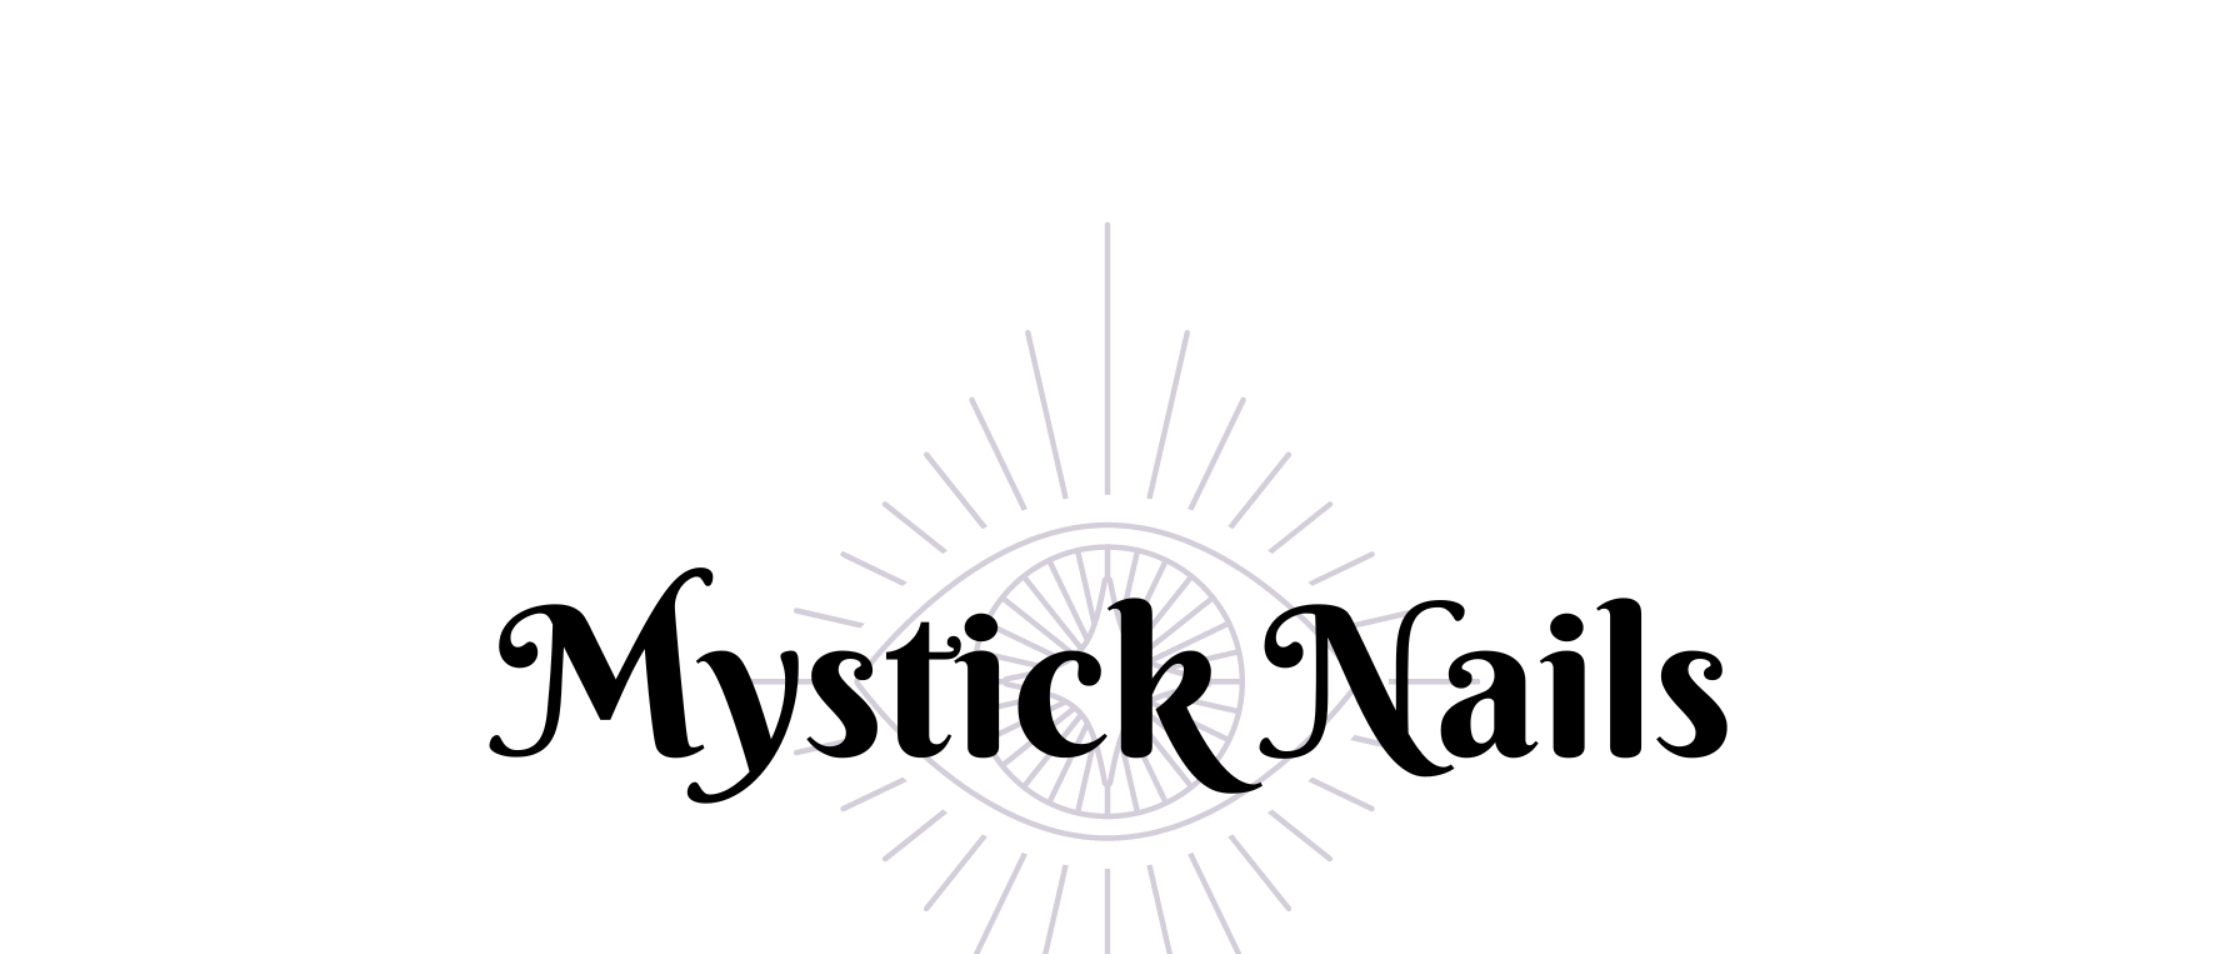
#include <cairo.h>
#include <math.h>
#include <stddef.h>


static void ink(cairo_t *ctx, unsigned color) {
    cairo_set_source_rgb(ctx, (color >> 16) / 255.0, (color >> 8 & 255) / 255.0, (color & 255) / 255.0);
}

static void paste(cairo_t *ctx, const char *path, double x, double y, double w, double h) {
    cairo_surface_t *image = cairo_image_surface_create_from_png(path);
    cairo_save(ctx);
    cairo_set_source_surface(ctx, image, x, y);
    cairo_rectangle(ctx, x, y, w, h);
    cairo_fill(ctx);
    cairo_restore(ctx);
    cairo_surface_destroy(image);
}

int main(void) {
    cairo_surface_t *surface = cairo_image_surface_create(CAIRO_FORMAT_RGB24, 2214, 954);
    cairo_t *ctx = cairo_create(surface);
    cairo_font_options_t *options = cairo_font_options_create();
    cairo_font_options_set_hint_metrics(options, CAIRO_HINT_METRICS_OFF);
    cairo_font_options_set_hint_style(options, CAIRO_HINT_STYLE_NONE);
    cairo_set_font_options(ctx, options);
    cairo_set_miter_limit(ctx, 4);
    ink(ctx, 0xFFFFFF);
    cairo_paint(ctx);
    paste(ctx, "media/1.png", 488, 221, 1240, 733);
    cairo_surface_write_to_png(surface, "image.png");
    cairo_font_options_destroy(options);
    cairo_destroy(ctx);
    cairo_surface_destroy(surface);
    return 0;
}
